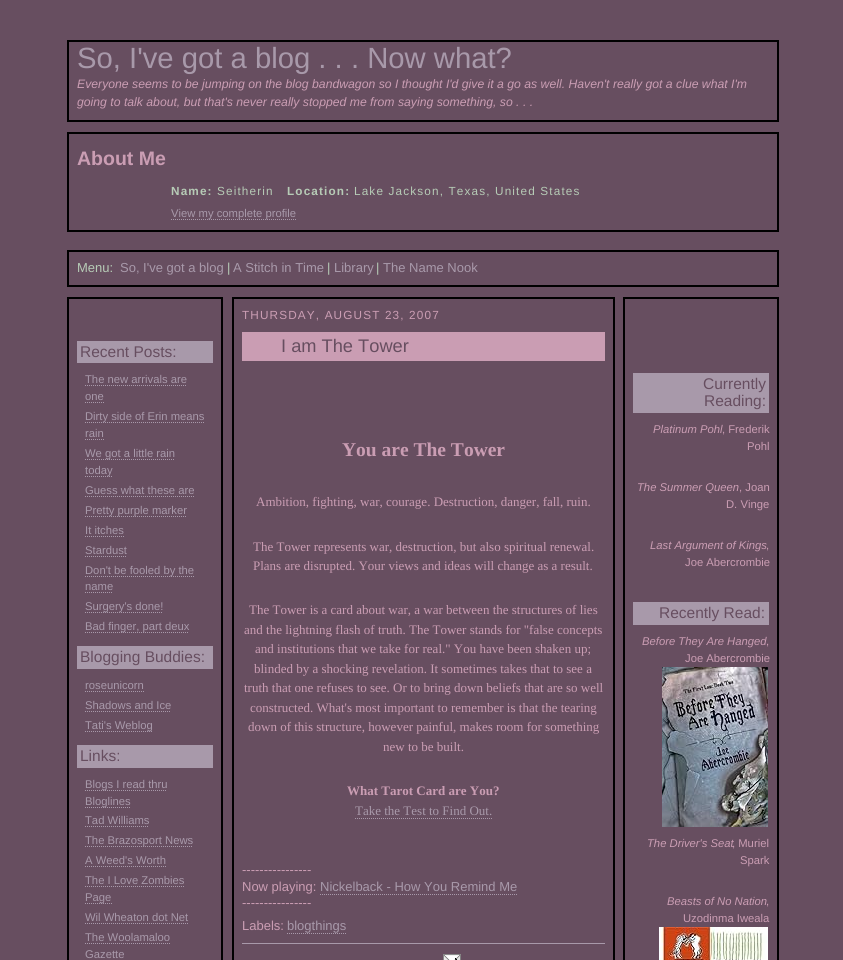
#include <cairo.h>
#include <math.h>
#include <stddef.h>

typedef struct { double x, y; const char *s; } line_t;

static void ink(cairo_t *ctx, unsigned color) {
    cairo_set_source_rgb(ctx, (color >> 16) / 255.0, (color >> 8 & 255) / 255.0, (color & 255) / 255.0);
}

static void write_spaced(cairo_t *ctx, double x, double y, const char *s, double letter, double word) {
    cairo_move_to(ctx, x, y);
    while (*s) {
        char ch[5] = {0};
        int n = 0;
        do ch[n++] = *s++; while ((*s & 0xC0) == 0x80);
        cairo_show_text(ctx, ch);
        cairo_rel_move_to(ctx, letter + word * (*ch == ' '), 0);
    }
}

static void paste(cairo_t *ctx, const char *path, double x, double y, double w, double h) {
    cairo_surface_t *image = cairo_image_surface_create_from_png(path);
    cairo_save(ctx);
    cairo_set_source_surface(ctx, image, x, y);
    cairo_rectangle(ctx, x, y, w, h);
    cairo_fill(ctx);
    cairo_restore(ctx);
    cairo_surface_destroy(image);
}

int main(void) {
    cairo_surface_t *surface = cairo_image_surface_create(CAIRO_FORMAT_RGB24, 843, 960);
    cairo_t *ctx = cairo_create(surface);
    cairo_font_options_t *options = cairo_font_options_create();
    cairo_font_options_set_hint_metrics(options, CAIRO_HINT_METRICS_OFF);
    cairo_font_options_set_hint_style(options, CAIRO_HINT_STYLE_NONE);
    cairo_set_font_options(ctx, options);
    cairo_set_miter_limit(ctx, 4);
    ink(ctx, 0x674E60);
    cairo_paint(ctx);
    cairo_rectangle(ctx, 68, 41, 710, 80);
    ink(ctx, 0x000000);
    cairo_stroke(ctx);
    cairo_select_font_face(ctx, "Liberation Sans", CAIRO_FONT_SLANT_NORMAL, CAIRO_FONT_WEIGHT_NORMAL);
    cairo_set_font_size(ctx, 29.25);
    ink(ctx, 0xA899AA);
    cairo_move_to(ctx, 77, 68);
    cairo_show_text(ctx, "So, I've got a blog . . . Now what?");
    cairo_select_font_face(ctx, "Liberation Sans", CAIRO_FONT_SLANT_ITALIC, CAIRO_FONT_WEIGHT_NORMAL);
    cairo_set_font_size(ctx, 12.22);
    ink(ctx, 0xCA9DB3);
    cairo_move_to(ctx, 77, 88);
    cairo_show_text(ctx, "Everyone seems to be jumping on the blog bandwagon so I thought I'd give it a go as well. Haven't really got a clue what I'm");
    cairo_move_to(ctx, 77, 106);
    cairo_show_text(ctx, "going to talk about, but that's never really stopped me from saying something, so . . .");
    cairo_rectangle(ctx, 68, 133, 710, 98);
    ink(ctx, 0x000000);
    cairo_stroke(ctx);
    cairo_select_font_face(ctx, "Liberation Sans", CAIRO_FONT_SLANT_NORMAL, CAIRO_FONT_WEIGHT_BOLD);
    cairo_set_font_size(ctx, 19.5);
    ink(ctx, 0xCA9DB3);
    cairo_move_to(ctx, 77, 165);
    cairo_show_text(ctx, "About Me");
    cairo_set_font_size(ctx, 11.75);
    ink(ctx, 0xB6CBB6);
    write_spaced(ctx, 171, 195, "Name:", 1.15, 0);
    cairo_select_font_face(ctx, "Liberation Sans", CAIRO_FONT_SLANT_NORMAL, CAIRO_FONT_WEIGHT_NORMAL);
    write_spaced(ctx, 217, 195, "Seitherin", 1.15, 0);
    cairo_select_font_face(ctx, "Liberation Sans", CAIRO_FONT_SLANT_NORMAL, CAIRO_FONT_WEIGHT_BOLD);
    write_spaced(ctx, 287, 195, "Location:", 1.15, 0);
    cairo_select_font_face(ctx, "Liberation Sans", CAIRO_FONT_SLANT_NORMAL, CAIRO_FONT_WEIGHT_NORMAL);
    write_spaced(ctx, 354, 195, "Lake Jackson, Texas, United States", 1.15, 0);
    cairo_new_path(ctx);
    cairo_move_to(ctx, 171, 219.5);
    cairo_line_to(ctx, 296, 219.5);
    ink(ctx, 0xA899AA);
    cairo_set_line_width(ctx, 1);
    cairo_set_dash(ctx, (double[]){1, 1}, 2, 0);
    cairo_stroke(ctx);
    cairo_set_font_size(ctx, 11.25);
    cairo_move_to(ctx, 171, 217);
    cairo_show_text(ctx, "View my complete profile");
    cairo_rectangle(ctx, 68, 251, 710, 35);
    ink(ctx, 0x000000);
    cairo_set_line_width(ctx, 2);
    cairo_set_dash(ctx, NULL, 0, 0);
    cairo_stroke(ctx);
    cairo_set_font_size(ctx, 13);
    ink(ctx, 0xB6CBB6);
    cairo_move_to(ctx, 77, 272);
    cairo_show_text(ctx, "Menu:");
    ink(ctx, 0xA899AA);
    cairo_move_to(ctx, 120, 272);
    cairo_show_text(ctx, "So, I've got a blog");
    ink(ctx, 0xB6CBB6);
    cairo_move_to(ctx, 227, 272);
    cairo_show_text(ctx, "|");
    ink(ctx, 0xA899AA);
    cairo_move_to(ctx, 233, 272);
    cairo_show_text(ctx, "A Stitch in Time");
    ink(ctx, 0xB6CBB6);
    cairo_move_to(ctx, 327, 272);
    cairo_show_text(ctx, "|");
    ink(ctx, 0xA899AA);
    cairo_move_to(ctx, 334, 272);
    cairo_show_text(ctx, "Library");
    ink(ctx, 0xB6CBB6);
    cairo_move_to(ctx, 376, 272);
    cairo_show_text(ctx, "|");
    ink(ctx, 0xA899AA);
    cairo_move_to(ctx, 383, 272);
    cairo_show_text(ctx, "The Name Nook");
    cairo_rectangle(ctx, 68, 298, 154, 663);
    ink(ctx, 0x000000);
    cairo_stroke(ctx);
    ink(ctx, 0xA899AA);
    cairo_rectangle(ctx, 77, 341, 136, 22);
    cairo_fill(ctx);
    cairo_set_font_size(ctx, 15.5);
    ink(ctx, 0x674E60);
    cairo_move_to(ctx, 80, 357);
    cairo_show_text(ctx, "Recent Posts:");
    cairo_set_font_size(ctx, 11.25);
    ink(ctx, 0xA899AA);
    cairo_move_to(ctx, 85, 383);
    cairo_show_text(ctx, "The new arrivals are");
    cairo_new_path(ctx);
    cairo_move_to(ctx, 85, 385.5);
    cairo_line_to(ctx, 187, 385.5);
    cairo_set_line_width(ctx, 1);
    cairo_set_dash(ctx, (double[]){1, 1}, 2, 0);
    cairo_stroke(ctx);
    cairo_move_to(ctx, 85, 400);
    cairo_show_text(ctx, "one");
    cairo_new_path(ctx);
    cairo_move_to(ctx, 85, 402.5);
    cairo_line_to(ctx, 104, 402.5);
    cairo_stroke(ctx);
    cairo_new_path(ctx);
    cairo_move_to(ctx, 85, 422.5);
    cairo_line_to(ctx, 204, 422.5);
    cairo_stroke(ctx);
    cairo_move_to(ctx, 85, 420);
    cairo_show_text(ctx, "Dirty side of Erin means");
    cairo_move_to(ctx, 85, 437);
    cairo_show_text(ctx, "rain");
    cairo_new_path(ctx);
    cairo_move_to(ctx, 85, 439.5);
    cairo_line_to(ctx, 104, 439.5);
    cairo_stroke(ctx);
    cairo_new_path(ctx);
    cairo_move_to(ctx, 85, 459.5);
    cairo_line_to(ctx, 175, 459.5);
    cairo_stroke(ctx);
    cairo_move_to(ctx, 85, 457);
    cairo_show_text(ctx, "We got a little rain");
    cairo_new_path(ctx);
    cairo_move_to(ctx, 85, 476.5);
    cairo_line_to(ctx, 113, 476.5);
    cairo_stroke(ctx);
    cairo_move_to(ctx, 85, 474);
    cairo_show_text(ctx, "today");
    cairo_move_to(ctx, 85, 494);
    cairo_show_text(ctx, "Guess what these are");
    cairo_new_path(ctx);
    cairo_move_to(ctx, 85, 496.5);
    cairo_line_to(ctx, 194, 496.5);
    cairo_stroke(ctx);
    cairo_new_path(ctx);
    cairo_move_to(ctx, 85, 516.5);
    cairo_line_to(ctx, 187, 516.5);
    cairo_stroke(ctx);
    cairo_move_to(ctx, 85, 514);
    cairo_show_text(ctx, "Pretty purple marker");
    cairo_move_to(ctx, 85, 534);
    cairo_show_text(ctx, "It itches");
    cairo_new_path(ctx);
    cairo_move_to(ctx, 85, 536.5);
    cairo_line_to(ctx, 124, 536.5);
    cairo_stroke(ctx);
    cairo_move_to(ctx, 85, 554);
    cairo_show_text(ctx, "Stardust");
    cairo_new_path(ctx);
    cairo_move_to(ctx, 85, 556.5);
    cairo_line_to(ctx, 127, 556.5);
    cairo_stroke(ctx);
    cairo_new_path(ctx);
    cairo_move_to(ctx, 85, 576.5);
    cairo_line_to(ctx, 194, 576.5);
    cairo_stroke(ctx);
    cairo_move_to(ctx, 85, 574);
    cairo_show_text(ctx, "Don't be fooled by the");
    cairo_move_to(ctx, 85, 590);
    cairo_show_text(ctx, "name");
    cairo_new_path(ctx);
    cairo_move_to(ctx, 85, 592.5);
    cairo_line_to(ctx, 113, 592.5);
    cairo_stroke(ctx);
    cairo_new_path(ctx);
    cairo_move_to(ctx, 85, 612.5);
    cairo_line_to(ctx, 163, 612.5);
    cairo_stroke(ctx);
    cairo_move_to(ctx, 85, 610);
    cairo_show_text(ctx, "Surgery's done!");
    cairo_new_path(ctx);
    cairo_move_to(ctx, 85, 632.5);
    cairo_line_to(ctx, 189, 632.5);
    cairo_stroke(ctx);
    cairo_move_to(ctx, 85, 630);
    cairo_show_text(ctx, "Bad finger, part deux");
    cairo_rectangle(ctx, 77, 646, 136, 23);
    cairo_fill(ctx);
    cairo_set_font_size(ctx, 15.5);
    ink(ctx, 0x674E60);
    cairo_move_to(ctx, 80, 662);
    cairo_show_text(ctx, "Blogging Buddies:");
    cairo_set_font_size(ctx, 11.25);
    ink(ctx, 0xA899AA);
    cairo_move_to(ctx, 85, 689);
    cairo_show_text(ctx, "roseunicorn");
    cairo_new_path(ctx);
    cairo_move_to(ctx, 85, 691.5);
    cairo_line_to(ctx, 144, 691.5);
    cairo_stroke(ctx);
    cairo_move_to(ctx, 85, 709);
    cairo_show_text(ctx, "Shadows and Ice");
    cairo_new_path(ctx);
    cairo_move_to(ctx, 85, 711.5);
    cairo_line_to(ctx, 171, 711.5);
    cairo_stroke(ctx);
    cairo_new_path(ctx);
    cairo_move_to(ctx, 85, 731.5);
    cairo_line_to(ctx, 153, 731.5);
    cairo_stroke(ctx);
    cairo_move_to(ctx, 85, 729);
    cairo_show_text(ctx, "Tati's Weblog");
    cairo_rectangle(ctx, 77, 745, 136, 23);
    cairo_fill(ctx);
    cairo_set_font_size(ctx, 15.5);
    ink(ctx, 0x674E60);
    cairo_move_to(ctx, 80, 761);
    cairo_show_text(ctx, "Links:");
    cairo_new_path(ctx);
    cairo_move_to(ctx, 85, 790.5);
    cairo_line_to(ctx, 167, 790.5);
    ink(ctx, 0xA899AA);
    cairo_stroke(ctx);
    cairo_set_font_size(ctx, 11.25);
    cairo_move_to(ctx, 85, 788);
    cairo_show_text(ctx, "Blogs I read thru");
    cairo_new_path(ctx);
    cairo_move_to(ctx, 85, 807.5);
    cairo_line_to(ctx, 131, 807.5);
    cairo_stroke(ctx);
    cairo_move_to(ctx, 85, 805);
    cairo_show_text(ctx, "Bloglines");
    cairo_move_to(ctx, 85, 824);
    cairo_show_text(ctx, "Tad Williams");
    cairo_new_path(ctx);
    cairo_move_to(ctx, 85, 826.5);
    cairo_line_to(ctx, 149, 826.5);
    cairo_stroke(ctx);
    cairo_new_path(ctx);
    cairo_move_to(ctx, 85, 846.5);
    cairo_line_to(ctx, 193, 846.5);
    cairo_stroke(ctx);
    cairo_move_to(ctx, 85, 844);
    cairo_show_text(ctx, "The Brazosport News");
    cairo_move_to(ctx, 85, 864);
    cairo_show_text(ctx, "A Weed's Worth");
    cairo_new_path(ctx);
    cairo_move_to(ctx, 85, 866.5);
    cairo_line_to(ctx, 166, 866.5);
    cairo_stroke(ctx);
    cairo_move_to(ctx, 85, 884);
    cairo_show_text(ctx, "The I Love Zombies");
    cairo_new_path(ctx);
    cairo_move_to(ctx, 85, 886.5);
    cairo_line_to(ctx, 184, 886.5);
    cairo_stroke(ctx);
    cairo_new_path(ctx);
    cairo_move_to(ctx, 85, 903.5);
    cairo_line_to(ctx, 112, 903.5);
    cairo_stroke(ctx);
    cairo_move_to(ctx, 85, 901);
    cairo_show_text(ctx, "Page");
    cairo_move_to(ctx, 85, 921);
    cairo_show_text(ctx, "Wil Wheaton dot Net");
    cairo_new_path(ctx);
    cairo_move_to(ctx, 85, 923.5);
    cairo_line_to(ctx, 188, 923.5);
    cairo_stroke(ctx);
    cairo_move_to(ctx, 85, 941);
    cairo_show_text(ctx, "The Woolamaloo");
    cairo_new_path(ctx);
    cairo_move_to(ctx, 85, 943.5);
    cairo_line_to(ctx, 170, 943.5);
    cairo_stroke(ctx);
    cairo_move_to(ctx, 85, 958);
    cairo_show_text(ctx, "Gazette");
    cairo_rectangle(ctx, 233, 298, 381, 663);
    ink(ctx, 0x000000);
    cairo_set_line_width(ctx, 2);
    cairo_set_dash(ctx, NULL, 0, 0);
    cairo_stroke(ctx);
    cairo_set_font_size(ctx, 11.75);
    ink(ctx, 0xCA9DB3);
    write_spaced(ctx, 242, 319, "THURSDAY, AUGUST 23, 2007", 1.15, 0);
    cairo_rectangle(ctx, 242, 332, 363, 29);
    cairo_fill(ctx);
    cairo_set_font_size(ctx, 18.25);
    ink(ctx, 0x674E60);
    cairo_move_to(ctx, 281, 352);
    cairo_show_text(ctx, "I am The Tower");
    cairo_select_font_face(ctx, "Liberation Serif", CAIRO_FONT_SLANT_NORMAL, CAIRO_FONT_WEIGHT_BOLD);
    cairo_set_font_size(ctx, 19.5);
    ink(ctx, 0xCA9DB3);
    cairo_move_to(ctx, 342, 456);
    cairo_show_text(ctx, "You are The Tower");
    cairo_select_font_face(ctx, "Liberation Serif", CAIRO_FONT_SLANT_NORMAL, CAIRO_FONT_WEIGHT_NORMAL);
    cairo_set_font_size(ctx, 13);
    {
        static const line_t items[] = {
            {256, 506, "Ambition, fighting, war, courage. Destruction, danger, fall, ruin."},
            {253, 551, "The Tower represents war, destruction, but also spiritual renewal."},
            {253, 570, "Plans are disrupted. Your views and ideas will change as a result."},
            {249, 614, "The Tower is a card about war, a war between the structures of lies"},
            {244, 634, "and the lightning flash of truth. The Tower stands for \"false concepts"},
            {255, 653, "and institutions that we take for real.\" You have been shaken up;"},
            {254, 673, "blinded by a shocking revelation. It sometimes takes that to see a"},
            {244, 692, "truth that one refuses to see. Or to bring down beliefs that are so well"},
            {250, 712, "constructed. What's most important to remember is that the tearing"},
            {248, 731, "down of this structure, however painful, makes room for something"},
            {383, 751, "new to be built."},
        };
        for (size_t i = 0; i < sizeof items / sizeof *items; i++) {
            cairo_move_to(ctx, items[i].x, items[i].y);
            cairo_show_text(ctx, items[i].s);
        }
    }
    cairo_select_font_face(ctx, "Liberation Serif", CAIRO_FONT_SLANT_NORMAL, CAIRO_FONT_WEIGHT_BOLD);
    cairo_move_to(ctx, 347, 795);
    cairo_show_text(ctx, "What Tarot Card are You?");
    cairo_select_font_face(ctx, "Liberation Serif", CAIRO_FONT_SLANT_NORMAL, CAIRO_FONT_WEIGHT_NORMAL);
    ink(ctx, 0xA899AA);
    cairo_move_to(ctx, 355, 815);
    cairo_show_text(ctx, "Take the Test to Find Out.");
    cairo_new_path(ctx);
    cairo_move_to(ctx, 355, 818.5);
    cairo_line_to(ctx, 492, 818.5);
    cairo_set_line_width(ctx, 1);
    cairo_set_dash(ctx, (double[]){1, 1}, 2, 0);
    cairo_stroke(ctx);
    cairo_select_font_face(ctx, "Liberation Sans", CAIRO_FONT_SLANT_NORMAL, CAIRO_FONT_WEIGHT_NORMAL);
    ink(ctx, 0xCA9DB3);
    cairo_move_to(ctx, 242, 874);
    cairo_show_text(ctx, "----------------");
    cairo_move_to(ctx, 242, 891);
    cairo_show_text(ctx, "Now playing:");
    ink(ctx, 0xA899AA);
    cairo_move_to(ctx, 320, 891);
    cairo_show_text(ctx, "Nickelback - How You Remind Me");
    cairo_new_path(ctx);
    cairo_move_to(ctx, 320, 894.5);
    cairo_line_to(ctx, 517, 894.5);
    cairo_stroke(ctx);
    ink(ctx, 0xCA9DB3);
    cairo_move_to(ctx, 242, 907);
    cairo_show_text(ctx, "----------------");
    cairo_move_to(ctx, 242, 930);
    cairo_show_text(ctx, "Labels:");
    ink(ctx, 0xA899AA);
    cairo_move_to(ctx, 287, 930);
    cairo_show_text(ctx, "blogthings");
    cairo_new_path(ctx);
    cairo_move_to(ctx, 287, 933.5);
    cairo_line_to(ctx, 346, 933.5);
    cairo_stroke(ctx);
    cairo_rectangle(ctx, 242, 943, 363, 1);
    cairo_fill(ctx);
    paste(ctx, "media/1.png", 443, 954, 18, 6);
    cairo_rectangle(ctx, 624, 298, 154, 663);
    ink(ctx, 0x000000);
    cairo_set_line_width(ctx, 2);
    cairo_set_dash(ctx, NULL, 0, 0);
    cairo_stroke(ctx);
    ink(ctx, 0xA899AA);
    cairo_rectangle(ctx, 633, 373, 136, 40);
    cairo_fill(ctx);
    cairo_set_font_size(ctx, 15.5);
    ink(ctx, 0x674E60);
    cairo_move_to(ctx, 703, 389);
    cairo_show_text(ctx, "Currently");
    cairo_move_to(ctx, 704, 406);
    cairo_show_text(ctx, "Reading:");
    cairo_select_font_face(ctx, "Liberation Sans", CAIRO_FONT_SLANT_ITALIC, CAIRO_FONT_WEIGHT_NORMAL);
    cairo_set_font_size(ctx, 11.25);
    ink(ctx, 0xCA9DB3);
    cairo_move_to(ctx, 653, 433);
    cairo_show_text(ctx, "Platinum Pohl");
    cairo_select_font_face(ctx, "Liberation Sans", CAIRO_FONT_SLANT_NORMAL, CAIRO_FONT_WEIGHT_NORMAL);
    cairo_move_to(ctx, 722, 433);
    cairo_show_text(ctx, ", Frederik");
    cairo_move_to(ctx, 747, 450);
    cairo_show_text(ctx, "Pohl");
    cairo_select_font_face(ctx, "Liberation Sans", CAIRO_FONT_SLANT_ITALIC, CAIRO_FONT_WEIGHT_NORMAL);
    cairo_move_to(ctx, 637, 491);
    cairo_show_text(ctx, "The Summer Queen");
    cairo_select_font_face(ctx, "Liberation Sans", CAIRO_FONT_SLANT_NORMAL, CAIRO_FONT_WEIGHT_NORMAL);
    cairo_move_to(ctx, 739, 491);
    cairo_show_text(ctx, ", Joan");
    cairo_move_to(ctx, 726, 508);
    cairo_show_text(ctx, "D. Vinge");
    cairo_select_font_face(ctx, "Liberation Sans", CAIRO_FONT_SLANT_ITALIC, CAIRO_FONT_WEIGHT_NORMAL);
    cairo_move_to(ctx, 650, 549);
    cairo_show_text(ctx, "Last Argument of Kings");
    cairo_select_font_face(ctx, "Liberation Sans", CAIRO_FONT_SLANT_NORMAL, CAIRO_FONT_WEIGHT_NORMAL);
    cairo_move_to(ctx, 766, 549);
    cairo_show_text(ctx, ",");
    cairo_move_to(ctx, 685, 566);
    cairo_show_text(ctx, "Joe Abercrombie");
    ink(ctx, 0xA899AA);
    cairo_rectangle(ctx, 633, 602, 136, 23);
    cairo_fill(ctx);
    cairo_set_font_size(ctx, 15.5);
    ink(ctx, 0x674E60);
    cairo_move_to(ctx, 659, 618);
    cairo_show_text(ctx, "Recently Read:");
    cairo_select_font_face(ctx, "Liberation Sans", CAIRO_FONT_SLANT_ITALIC, CAIRO_FONT_WEIGHT_NORMAL);
    cairo_set_font_size(ctx, 11.25);
    ink(ctx, 0xCA9DB3);
    cairo_move_to(ctx, 642, 645);
    cairo_show_text(ctx, "Before They Are Hanged");
    cairo_select_font_face(ctx, "Liberation Sans", CAIRO_FONT_SLANT_NORMAL, CAIRO_FONT_WEIGHT_NORMAL);
    cairo_move_to(ctx, 766, 645);
    cairo_show_text(ctx, ",");
    cairo_move_to(ctx, 685, 662);
    cairo_show_text(ctx, "Joe Abercrombie");
    paste(ctx, "media/2.png", 662, 667, 106, 160);
    cairo_select_font_face(ctx, "Liberation Sans", CAIRO_FONT_SLANT_ITALIC, CAIRO_FONT_WEIGHT_NORMAL);
    cairo_move_to(ctx, 647, 847);
    cairo_show_text(ctx, "The Driver's Seat");
    cairo_select_font_face(ctx, "Liberation Sans", CAIRO_FONT_SLANT_NORMAL, CAIRO_FONT_WEIGHT_NORMAL);
    cairo_move_to(ctx, 732, 847);
    cairo_show_text(ctx, ", Muriel");
    cairo_move_to(ctx, 740, 864);
    cairo_show_text(ctx, "Spark");
    cairo_select_font_face(ctx, "Liberation Sans", CAIRO_FONT_SLANT_ITALIC, CAIRO_FONT_WEIGHT_NORMAL);
    cairo_move_to(ctx, 667, 905);
    cairo_show_text(ctx, "Beasts of No Nation");
    cairo_select_font_face(ctx, "Liberation Sans", CAIRO_FONT_SLANT_NORMAL, CAIRO_FONT_WEIGHT_NORMAL);
    cairo_move_to(ctx, 766, 905);
    cairo_show_text(ctx, ",");
    cairo_move_to(ctx, 683, 922);
    cairo_show_text(ctx, "Uzodinma Iweala");
    paste(ctx, "media/3.png", 659, 927, 109, 33);
    cairo_surface_write_to_png(surface, "image.png");
    cairo_font_options_destroy(options);
    cairo_destroy(ctx);
    cairo_surface_destroy(surface);
    return 0;
}
